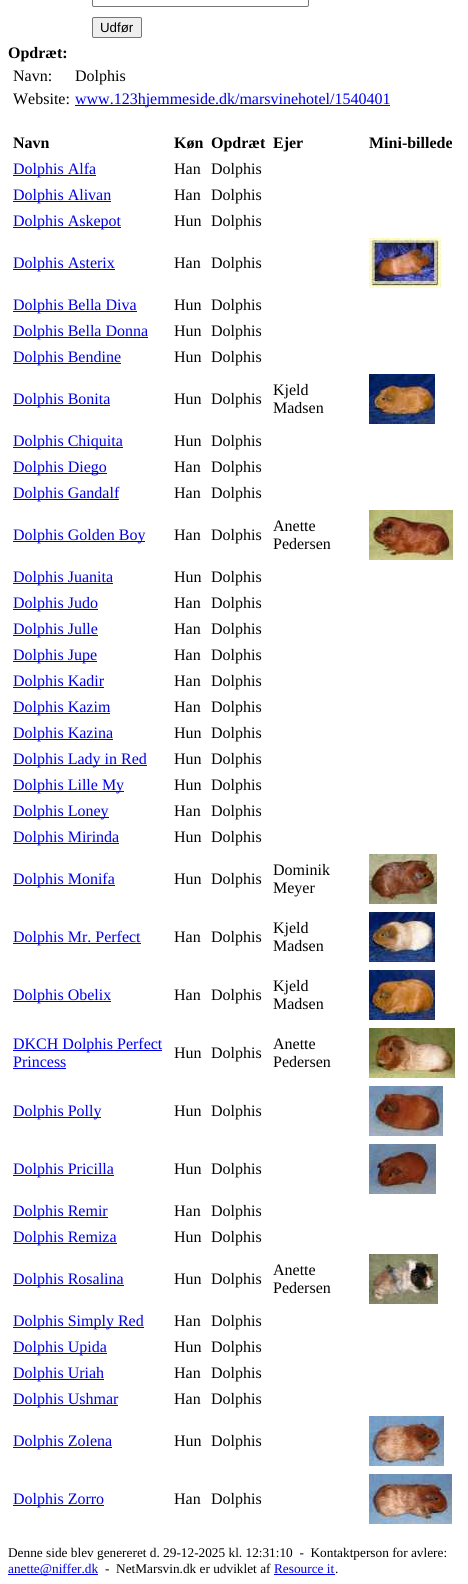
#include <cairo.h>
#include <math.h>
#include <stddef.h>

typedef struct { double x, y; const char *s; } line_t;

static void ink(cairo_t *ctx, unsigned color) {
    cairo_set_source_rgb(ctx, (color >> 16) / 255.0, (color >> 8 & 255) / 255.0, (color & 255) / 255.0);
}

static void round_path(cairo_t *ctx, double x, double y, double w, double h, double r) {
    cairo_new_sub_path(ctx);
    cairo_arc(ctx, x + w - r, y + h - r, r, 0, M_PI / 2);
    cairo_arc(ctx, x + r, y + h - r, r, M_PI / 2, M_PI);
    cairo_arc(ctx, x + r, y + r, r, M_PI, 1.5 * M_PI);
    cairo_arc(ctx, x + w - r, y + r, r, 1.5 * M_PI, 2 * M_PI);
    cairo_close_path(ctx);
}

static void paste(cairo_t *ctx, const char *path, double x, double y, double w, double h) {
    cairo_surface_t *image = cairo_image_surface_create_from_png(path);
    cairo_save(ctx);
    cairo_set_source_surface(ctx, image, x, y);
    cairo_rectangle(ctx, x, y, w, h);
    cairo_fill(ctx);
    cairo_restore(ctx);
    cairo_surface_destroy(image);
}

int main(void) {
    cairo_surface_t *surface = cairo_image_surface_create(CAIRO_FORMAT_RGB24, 468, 1584);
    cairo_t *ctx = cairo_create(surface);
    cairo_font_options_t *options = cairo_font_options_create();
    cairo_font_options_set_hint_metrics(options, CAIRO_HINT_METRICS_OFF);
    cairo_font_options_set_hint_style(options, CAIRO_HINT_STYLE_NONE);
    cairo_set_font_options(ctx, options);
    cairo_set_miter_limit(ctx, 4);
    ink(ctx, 0xFFFFFF);
    cairo_paint(ctx);
    round_path(ctx, 92.5, -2.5, 216, 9, 1.5);
    ink(ctx, 0x767676);
    cairo_set_line_width(ctx, 1);
    cairo_stroke(ctx);
    ink(ctx, 0xEFEFEF);
    round_path(ctx, 92.5, 17.5, 49, 20, 1.5);
    cairo_fill_preserve(ctx);
    ink(ctx, 0x767676);
    cairo_stroke(ctx);
    cairo_select_font_face(ctx, "Liberation Sans", CAIRO_FONT_SLANT_NORMAL, CAIRO_FONT_WEIGHT_NORMAL);
    cairo_set_font_size(ctx, 13.3);
    ink(ctx, 0x000000);
    cairo_move_to(ctx, 100, 32);
    cairo_show_text(ctx, "Udfør");
    cairo_select_font_face(ctx, "Liberation Serif", CAIRO_FONT_SLANT_NORMAL, CAIRO_FONT_WEIGHT_BOLD);
    cairo_set_font_size(ctx, 16);
    cairo_move_to(ctx, 8, 58);
    cairo_show_text(ctx, "Opdræt:");
    cairo_select_font_face(ctx, "Liberation Serif", CAIRO_FONT_SLANT_NORMAL, CAIRO_FONT_WEIGHT_NORMAL);
    {
        static const line_t items[] = {
            {13, 81, "Navn:"},
            {75, 81, "Dolphis"},
            {13, 104, "Website:"},
        };
        for (size_t i = 0; i < sizeof items / sizeof *items; i++) {
            cairo_move_to(ctx, items[i].x, items[i].y);
            cairo_show_text(ctx, items[i].s);
        }
    }
    ink(ctx, 0x0000EE);
    cairo_rectangle(ctx, 75, 105, 315, 1);
    cairo_fill(ctx);
    cairo_move_to(ctx, 75, 104);
    cairo_show_text(ctx, "www.123hjemmeside.dk/marsvinehotel/1540401");
    cairo_select_font_face(ctx, "Liberation Serif", CAIRO_FONT_SLANT_NORMAL, CAIRO_FONT_WEIGHT_BOLD);
    ink(ctx, 0x000000);
    {
        static const line_t items[] = {
            {13, 148, "Navn"},
            {174, 148, "Køn"},
            {211, 148, "Opdræt"},
            {273, 148, "Ejer"},
            {369, 148, "Mini-billede"},
        };
        for (size_t i = 0; i < sizeof items / sizeof *items; i++) {
            cairo_move_to(ctx, items[i].x, items[i].y);
            cairo_show_text(ctx, items[i].s);
        }
    }
    ink(ctx, 0x0000EE);
    cairo_rectangle(ctx, 13, 175, 83, 1);
    cairo_fill(ctx);
    cairo_select_font_face(ctx, "Liberation Serif", CAIRO_FONT_SLANT_NORMAL, CAIRO_FONT_WEIGHT_NORMAL);
    cairo_move_to(ctx, 13, 174);
    cairo_show_text(ctx, "Dolphis Alfa");
    ink(ctx, 0x000000);
    cairo_move_to(ctx, 174, 174);
    cairo_show_text(ctx, "Han");
    cairo_move_to(ctx, 211, 174);
    cairo_show_text(ctx, "Dolphis");
    ink(ctx, 0x0000EE);
    cairo_rectangle(ctx, 13, 201, 98, 1);
    cairo_fill(ctx);
    cairo_move_to(ctx, 13, 200);
    cairo_show_text(ctx, "Dolphis Alivan");
    ink(ctx, 0x000000);
    cairo_move_to(ctx, 174, 200);
    cairo_show_text(ctx, "Han");
    cairo_move_to(ctx, 211, 200);
    cairo_show_text(ctx, "Dolphis");
    ink(ctx, 0x0000EE);
    cairo_rectangle(ctx, 13, 227, 108, 1);
    cairo_fill(ctx);
    cairo_move_to(ctx, 13, 226);
    cairo_show_text(ctx, "Dolphis Askepot");
    ink(ctx, 0x000000);
    cairo_move_to(ctx, 174, 226);
    cairo_show_text(ctx, "Hun");
    cairo_move_to(ctx, 211, 226);
    cairo_show_text(ctx, "Dolphis");
    ink(ctx, 0x0000EE);
    cairo_rectangle(ctx, 13, 269, 102, 1);
    cairo_fill(ctx);
    cairo_move_to(ctx, 13, 268);
    cairo_show_text(ctx, "Dolphis Asterix");
    ink(ctx, 0x000000);
    cairo_move_to(ctx, 174, 268);
    cairo_show_text(ctx, "Han");
    cairo_move_to(ctx, 211, 268);
    cairo_show_text(ctx, "Dolphis");
    paste(ctx, "media/1.png", 369, 238, 72, 50);
    ink(ctx, 0x0000EE);
    cairo_rectangle(ctx, 13, 311, 124, 1);
    cairo_fill(ctx);
    cairo_move_to(ctx, 13, 310);
    cairo_show_text(ctx, "Dolphis Bella Diva");
    ink(ctx, 0x000000);
    cairo_move_to(ctx, 174, 310);
    cairo_show_text(ctx, "Hun");
    cairo_move_to(ctx, 211, 310);
    cairo_show_text(ctx, "Dolphis");
    ink(ctx, 0x0000EE);
    cairo_rectangle(ctx, 13, 337, 135, 1);
    cairo_fill(ctx);
    cairo_move_to(ctx, 13, 336);
    cairo_show_text(ctx, "Dolphis Bella Donna");
    ink(ctx, 0x000000);
    cairo_move_to(ctx, 174, 336);
    cairo_show_text(ctx, "Hun");
    cairo_move_to(ctx, 211, 336);
    cairo_show_text(ctx, "Dolphis");
    ink(ctx, 0x0000EE);
    cairo_rectangle(ctx, 13, 363, 108, 1);
    cairo_fill(ctx);
    cairo_move_to(ctx, 13, 362);
    cairo_show_text(ctx, "Dolphis Bendine");
    ink(ctx, 0x000000);
    cairo_move_to(ctx, 174, 362);
    cairo_show_text(ctx, "Hun");
    cairo_move_to(ctx, 211, 362);
    cairo_show_text(ctx, "Dolphis");
    ink(ctx, 0x0000EE);
    cairo_rectangle(ctx, 13, 405, 97, 1);
    cairo_fill(ctx);
    cairo_move_to(ctx, 13, 404);
    cairo_show_text(ctx, "Dolphis Bonita");
    ink(ctx, 0x000000);
    {
        static const line_t items[] = {
            {174, 404, "Hun"},
            {211, 404, "Dolphis"},
            {273, 395, "Kjeld"},
            {273, 413, "Madsen"},
        };
        for (size_t i = 0; i < sizeof items / sizeof *items; i++) {
            cairo_move_to(ctx, items[i].x, items[i].y);
            cairo_show_text(ctx, items[i].s);
        }
    }
    paste(ctx, "media/2.png", 369, 374, 66, 50);
    ink(ctx, 0x0000EE);
    cairo_rectangle(ctx, 13, 447, 110, 1);
    cairo_fill(ctx);
    cairo_move_to(ctx, 13, 446);
    cairo_show_text(ctx, "Dolphis Chiquita");
    ink(ctx, 0x000000);
    cairo_move_to(ctx, 174, 446);
    cairo_show_text(ctx, "Hun");
    cairo_move_to(ctx, 211, 446);
    cairo_show_text(ctx, "Dolphis");
    ink(ctx, 0x0000EE);
    cairo_rectangle(ctx, 13, 473, 94, 1);
    cairo_fill(ctx);
    cairo_move_to(ctx, 13, 472);
    cairo_show_text(ctx, "Dolphis Diego");
    ink(ctx, 0x000000);
    cairo_move_to(ctx, 174, 472);
    cairo_show_text(ctx, "Han");
    cairo_move_to(ctx, 211, 472);
    cairo_show_text(ctx, "Dolphis");
    ink(ctx, 0x0000EE);
    cairo_rectangle(ctx, 13, 499, 106, 1);
    cairo_fill(ctx);
    cairo_move_to(ctx, 13, 498);
    cairo_show_text(ctx, "Dolphis Gandalf");
    ink(ctx, 0x000000);
    cairo_move_to(ctx, 174, 498);
    cairo_show_text(ctx, "Han");
    cairo_move_to(ctx, 211, 498);
    cairo_show_text(ctx, "Dolphis");
    ink(ctx, 0x0000EE);
    cairo_rectangle(ctx, 13, 541, 132, 1);
    cairo_fill(ctx);
    cairo_move_to(ctx, 13, 540);
    cairo_show_text(ctx, "Dolphis Golden Boy");
    ink(ctx, 0x000000);
    {
        static const line_t items[] = {
            {174, 540, "Han"},
            {211, 540, "Dolphis"},
            {273, 531, "Anette"},
            {273, 549, "Pedersen"},
        };
        for (size_t i = 0; i < sizeof items / sizeof *items; i++) {
            cairo_move_to(ctx, items[i].x, items[i].y);
            cairo_show_text(ctx, items[i].s);
        }
    }
    paste(ctx, "media/3.png", 369, 510, 84, 50);
    ink(ctx, 0x0000EE);
    cairo_rectangle(ctx, 13, 583, 100, 1);
    cairo_fill(ctx);
    cairo_move_to(ctx, 13, 582);
    cairo_show_text(ctx, "Dolphis Juanita");
    ink(ctx, 0x000000);
    cairo_move_to(ctx, 174, 582);
    cairo_show_text(ctx, "Hun");
    cairo_move_to(ctx, 211, 582);
    cairo_show_text(ctx, "Dolphis");
    ink(ctx, 0x0000EE);
    cairo_rectangle(ctx, 13, 609, 85, 1);
    cairo_fill(ctx);
    cairo_move_to(ctx, 13, 608);
    cairo_show_text(ctx, "Dolphis Judo");
    ink(ctx, 0x000000);
    cairo_move_to(ctx, 174, 608);
    cairo_show_text(ctx, "Han");
    cairo_move_to(ctx, 211, 608);
    cairo_show_text(ctx, "Dolphis");
    ink(ctx, 0x0000EE);
    cairo_rectangle(ctx, 13, 635, 85, 1);
    cairo_fill(ctx);
    cairo_move_to(ctx, 13, 634);
    cairo_show_text(ctx, "Dolphis Julle");
    ink(ctx, 0x000000);
    cairo_move_to(ctx, 174, 634);
    cairo_show_text(ctx, "Han");
    cairo_move_to(ctx, 211, 634);
    cairo_show_text(ctx, "Dolphis");
    ink(ctx, 0x0000EE);
    cairo_rectangle(ctx, 13, 661, 84, 1);
    cairo_fill(ctx);
    cairo_move_to(ctx, 13, 660);
    cairo_show_text(ctx, "Dolphis Jupe");
    ink(ctx, 0x000000);
    cairo_move_to(ctx, 174, 660);
    cairo_show_text(ctx, "Han");
    cairo_move_to(ctx, 211, 660);
    cairo_show_text(ctx, "Dolphis");
    ink(ctx, 0x0000EE);
    cairo_rectangle(ctx, 13, 687, 91, 1);
    cairo_fill(ctx);
    cairo_move_to(ctx, 13, 686);
    cairo_show_text(ctx, "Dolphis Kadir");
    ink(ctx, 0x000000);
    cairo_move_to(ctx, 174, 686);
    cairo_show_text(ctx, "Han");
    cairo_move_to(ctx, 211, 686);
    cairo_show_text(ctx, "Dolphis");
    ink(ctx, 0x0000EE);
    cairo_rectangle(ctx, 13, 713, 97, 1);
    cairo_fill(ctx);
    cairo_move_to(ctx, 13, 712);
    cairo_show_text(ctx, "Dolphis Kazim");
    ink(ctx, 0x000000);
    cairo_move_to(ctx, 174, 712);
    cairo_show_text(ctx, "Han");
    cairo_move_to(ctx, 211, 712);
    cairo_show_text(ctx, "Dolphis");
    ink(ctx, 0x0000EE);
    cairo_rectangle(ctx, 13, 739, 100, 1);
    cairo_fill(ctx);
    cairo_move_to(ctx, 13, 738);
    cairo_show_text(ctx, "Dolphis Kazina");
    ink(ctx, 0x000000);
    cairo_move_to(ctx, 174, 738);
    cairo_show_text(ctx, "Hun");
    cairo_move_to(ctx, 211, 738);
    cairo_show_text(ctx, "Dolphis");
    ink(ctx, 0x0000EE);
    cairo_rectangle(ctx, 13, 765, 134, 1);
    cairo_fill(ctx);
    cairo_move_to(ctx, 13, 764);
    cairo_show_text(ctx, "Dolphis Lady in Red");
    ink(ctx, 0x000000);
    cairo_move_to(ctx, 174, 764);
    cairo_show_text(ctx, "Hun");
    cairo_move_to(ctx, 211, 764);
    cairo_show_text(ctx, "Dolphis");
    ink(ctx, 0x0000EE);
    cairo_rectangle(ctx, 13, 791, 111, 1);
    cairo_fill(ctx);
    cairo_move_to(ctx, 13, 790);
    cairo_show_text(ctx, "Dolphis Lille My");
    ink(ctx, 0x000000);
    cairo_move_to(ctx, 174, 790);
    cairo_show_text(ctx, "Hun");
    cairo_move_to(ctx, 211, 790);
    cairo_show_text(ctx, "Dolphis");
    ink(ctx, 0x0000EE);
    cairo_rectangle(ctx, 13, 817, 96, 1);
    cairo_fill(ctx);
    cairo_move_to(ctx, 13, 816);
    cairo_show_text(ctx, "Dolphis Loney");
    ink(ctx, 0x000000);
    cairo_move_to(ctx, 174, 816);
    cairo_show_text(ctx, "Han");
    cairo_move_to(ctx, 211, 816);
    cairo_show_text(ctx, "Dolphis");
    ink(ctx, 0x0000EE);
    cairo_rectangle(ctx, 13, 843, 106, 1);
    cairo_fill(ctx);
    cairo_move_to(ctx, 13, 842);
    cairo_show_text(ctx, "Dolphis Mirinda");
    ink(ctx, 0x000000);
    cairo_move_to(ctx, 174, 842);
    cairo_show_text(ctx, "Hun");
    cairo_move_to(ctx, 211, 842);
    cairo_show_text(ctx, "Dolphis");
    ink(ctx, 0x0000EE);
    cairo_rectangle(ctx, 13, 885, 102, 1);
    cairo_fill(ctx);
    cairo_move_to(ctx, 13, 884);
    cairo_show_text(ctx, "Dolphis Monifa");
    ink(ctx, 0x000000);
    {
        static const line_t items[] = {
            {174, 884, "Hun"},
            {211, 884, "Dolphis"},
            {273, 875, "Dominik"},
            {273, 893, "Meyer"},
        };
        for (size_t i = 0; i < sizeof items / sizeof *items; i++) {
            cairo_move_to(ctx, items[i].x, items[i].y);
            cairo_show_text(ctx, items[i].s);
        }
    }
    paste(ctx, "media/4.png", 369, 854, 68, 50);
    ink(ctx, 0x0000EE);
    cairo_rectangle(ctx, 13, 943, 128, 1);
    cairo_fill(ctx);
    cairo_move_to(ctx, 13, 942);
    cairo_show_text(ctx, "Dolphis Mr. Perfect");
    ink(ctx, 0x000000);
    {
        static const line_t items[] = {
            {174, 942, "Han"},
            {211, 942, "Dolphis"},
            {273, 933, "Kjeld"},
            {273, 951, "Madsen"},
        };
        for (size_t i = 0; i < sizeof items / sizeof *items; i++) {
            cairo_move_to(ctx, items[i].x, items[i].y);
            cairo_show_text(ctx, items[i].s);
        }
    }
    paste(ctx, "media/5.png", 369, 912, 66, 50);
    ink(ctx, 0x0000EE);
    cairo_rectangle(ctx, 13, 1001, 98, 1);
    cairo_fill(ctx);
    cairo_move_to(ctx, 13, 1000);
    cairo_show_text(ctx, "Dolphis Obelix");
    ink(ctx, 0x000000);
    {
        static const line_t items[] = {
            {174, 1000, "Han"},
            {211, 1000, "Dolphis"},
            {273, 991, "Kjeld"},
            {273, 1009, "Madsen"},
        };
        for (size_t i = 0; i < sizeof items / sizeof *items; i++) {
            cairo_move_to(ctx, items[i].x, items[i].y);
            cairo_show_text(ctx, items[i].s);
        }
    }
    paste(ctx, "media/6.png", 369, 970, 66, 50);
    ink(ctx, 0x0000EE);
    cairo_rectangle(ctx, 13, 1050, 149, 1);
    cairo_fill(ctx);
    cairo_move_to(ctx, 13, 1049);
    cairo_show_text(ctx, "DKCH Dolphis Perfect");
    cairo_move_to(ctx, 13, 1067);
    cairo_show_text(ctx, "Princess");
    cairo_rectangle(ctx, 13, 1068, 53, 1);
    cairo_fill(ctx);
    ink(ctx, 0x000000);
    {
        static const line_t items[] = {
            {174, 1058, "Hun"},
            {211, 1058, "Dolphis"},
            {273, 1049, "Anette"},
            {273, 1067, "Pedersen"},
        };
        for (size_t i = 0; i < sizeof items / sizeof *items; i++) {
            cairo_move_to(ctx, items[i].x, items[i].y);
            cairo_show_text(ctx, items[i].s);
        }
    }
    paste(ctx, "media/7.png", 369, 1028, 86, 50);
    ink(ctx, 0x0000EE);
    cairo_rectangle(ctx, 13, 1117, 88, 1);
    cairo_fill(ctx);
    cairo_move_to(ctx, 13, 1116);
    cairo_show_text(ctx, "Dolphis Polly");
    ink(ctx, 0x000000);
    cairo_move_to(ctx, 174, 1116);
    cairo_show_text(ctx, "Hun");
    cairo_move_to(ctx, 211, 1116);
    cairo_show_text(ctx, "Dolphis");
    paste(ctx, "media/8.png", 369, 1086, 74, 50);
    ink(ctx, 0x0000EE);
    cairo_rectangle(ctx, 13, 1175, 101, 1);
    cairo_fill(ctx);
    cairo_move_to(ctx, 13, 1174);
    cairo_show_text(ctx, "Dolphis Pricilla");
    ink(ctx, 0x000000);
    cairo_move_to(ctx, 174, 1174);
    cairo_show_text(ctx, "Hun");
    cairo_move_to(ctx, 211, 1174);
    cairo_show_text(ctx, "Dolphis");
    paste(ctx, "media/9.png", 369, 1144, 67, 50);
    ink(ctx, 0x0000EE);
    cairo_rectangle(ctx, 13, 1217, 95, 1);
    cairo_fill(ctx);
    cairo_move_to(ctx, 13, 1216);
    cairo_show_text(ctx, "Dolphis Remir");
    ink(ctx, 0x000000);
    cairo_move_to(ctx, 174, 1216);
    cairo_show_text(ctx, "Han");
    cairo_move_to(ctx, 211, 1216);
    cairo_show_text(ctx, "Dolphis");
    ink(ctx, 0x0000EE);
    cairo_rectangle(ctx, 13, 1243, 104, 1);
    cairo_fill(ctx);
    cairo_move_to(ctx, 13, 1242);
    cairo_show_text(ctx, "Dolphis Remiza");
    ink(ctx, 0x000000);
    cairo_move_to(ctx, 174, 1242);
    cairo_show_text(ctx, "Hun");
    cairo_move_to(ctx, 211, 1242);
    cairo_show_text(ctx, "Dolphis");
    ink(ctx, 0x0000EE);
    cairo_rectangle(ctx, 13, 1285, 111, 1);
    cairo_fill(ctx);
    cairo_move_to(ctx, 13, 1284);
    cairo_show_text(ctx, "Dolphis Rosalina");
    ink(ctx, 0x000000);
    {
        static const line_t items[] = {
            {174, 1284, "Hun"},
            {211, 1284, "Dolphis"},
            {273, 1275, "Anette"},
            {273, 1293, "Pedersen"},
        };
        for (size_t i = 0; i < sizeof items / sizeof *items; i++) {
            cairo_move_to(ctx, items[i].x, items[i].y);
            cairo_show_text(ctx, items[i].s);
        }
    }
    paste(ctx, "media/10.png", 369, 1254, 69, 50);
    ink(ctx, 0x0000EE);
    cairo_rectangle(ctx, 13, 1327, 131, 1);
    cairo_fill(ctx);
    cairo_move_to(ctx, 13, 1326);
    cairo_show_text(ctx, "Dolphis Simply Red");
    ink(ctx, 0x000000);
    cairo_move_to(ctx, 174, 1326);
    cairo_show_text(ctx, "Han");
    cairo_move_to(ctx, 211, 1326);
    cairo_show_text(ctx, "Dolphis");
    ink(ctx, 0x0000EE);
    cairo_rectangle(ctx, 13, 1353, 94, 1);
    cairo_fill(ctx);
    cairo_move_to(ctx, 13, 1352);
    cairo_show_text(ctx, "Dolphis Upida");
    ink(ctx, 0x000000);
    cairo_move_to(ctx, 174, 1352);
    cairo_show_text(ctx, "Hun");
    cairo_move_to(ctx, 211, 1352);
    cairo_show_text(ctx, "Dolphis");
    ink(ctx, 0x0000EE);
    cairo_rectangle(ctx, 13, 1379, 91, 1);
    cairo_fill(ctx);
    cairo_move_to(ctx, 13, 1378);
    cairo_show_text(ctx, "Dolphis Uriah");
    ink(ctx, 0x000000);
    cairo_move_to(ctx, 174, 1378);
    cairo_show_text(ctx, "Han");
    cairo_move_to(ctx, 211, 1378);
    cairo_show_text(ctx, "Dolphis");
    ink(ctx, 0x0000EE);
    cairo_rectangle(ctx, 13, 1405, 105, 1);
    cairo_fill(ctx);
    cairo_move_to(ctx, 13, 1404);
    cairo_show_text(ctx, "Dolphis Ushmar");
    ink(ctx, 0x000000);
    cairo_move_to(ctx, 174, 1404);
    cairo_show_text(ctx, "Han");
    cairo_move_to(ctx, 211, 1404);
    cairo_show_text(ctx, "Dolphis");
    ink(ctx, 0x0000EE);
    cairo_rectangle(ctx, 13, 1447, 99, 1);
    cairo_fill(ctx);
    cairo_move_to(ctx, 13, 1446);
    cairo_show_text(ctx, "Dolphis Zolena");
    ink(ctx, 0x000000);
    cairo_move_to(ctx, 174, 1446);
    cairo_show_text(ctx, "Hun");
    cairo_move_to(ctx, 211, 1446);
    cairo_show_text(ctx, "Dolphis");
    paste(ctx, "media/11.png", 369, 1416, 75, 50);
    ink(ctx, 0x0000EE);
    cairo_rectangle(ctx, 13, 1505, 91, 1);
    cairo_fill(ctx);
    cairo_move_to(ctx, 13, 1504);
    cairo_show_text(ctx, "Dolphis Zorro");
    ink(ctx, 0x000000);
    cairo_move_to(ctx, 174, 1504);
    cairo_show_text(ctx, "Han");
    cairo_move_to(ctx, 211, 1504);
    cairo_show_text(ctx, "Dolphis");
    paste(ctx, "media/12.png", 369, 1474, 83, 50);
    cairo_set_font_size(ctx, 13.3);
    cairo_move_to(ctx, 8, 1557);
    cairo_show_text(ctx, "Denne side blev genereret d. 29-12-2025 kl. 12:31:10  -  Kontaktperson for avlere:");
    ink(ctx, 0x0000EE);
    cairo_rectangle(ctx, 8, 1574, 90, 1);
    cairo_fill(ctx);
    cairo_move_to(ctx, 8, 1573);
    cairo_show_text(ctx, "anette@niffer.dk");
    ink(ctx, 0x000000);
    cairo_move_to(ctx, 105, 1573);
    cairo_show_text(ctx, "-  NetMarsvin.dk er udviklet af");
    ink(ctx, 0x0000EE);
    cairo_move_to(ctx, 274, 1573);
    cairo_show_text(ctx, "Resource it");
    ink(ctx, 0x000000);
    cairo_move_to(ctx, 335, 1573);
    cairo_show_text(ctx, ".");
    ink(ctx, 0x0000EE);
    cairo_rectangle(ctx, 274, 1574, 61, 1);
    cairo_fill(ctx);
    cairo_surface_write_to_png(surface, "image.png");
    cairo_font_options_destroy(options);
    cairo_destroy(ctx);
    cairo_surface_destroy(surface);
    return 0;
}
